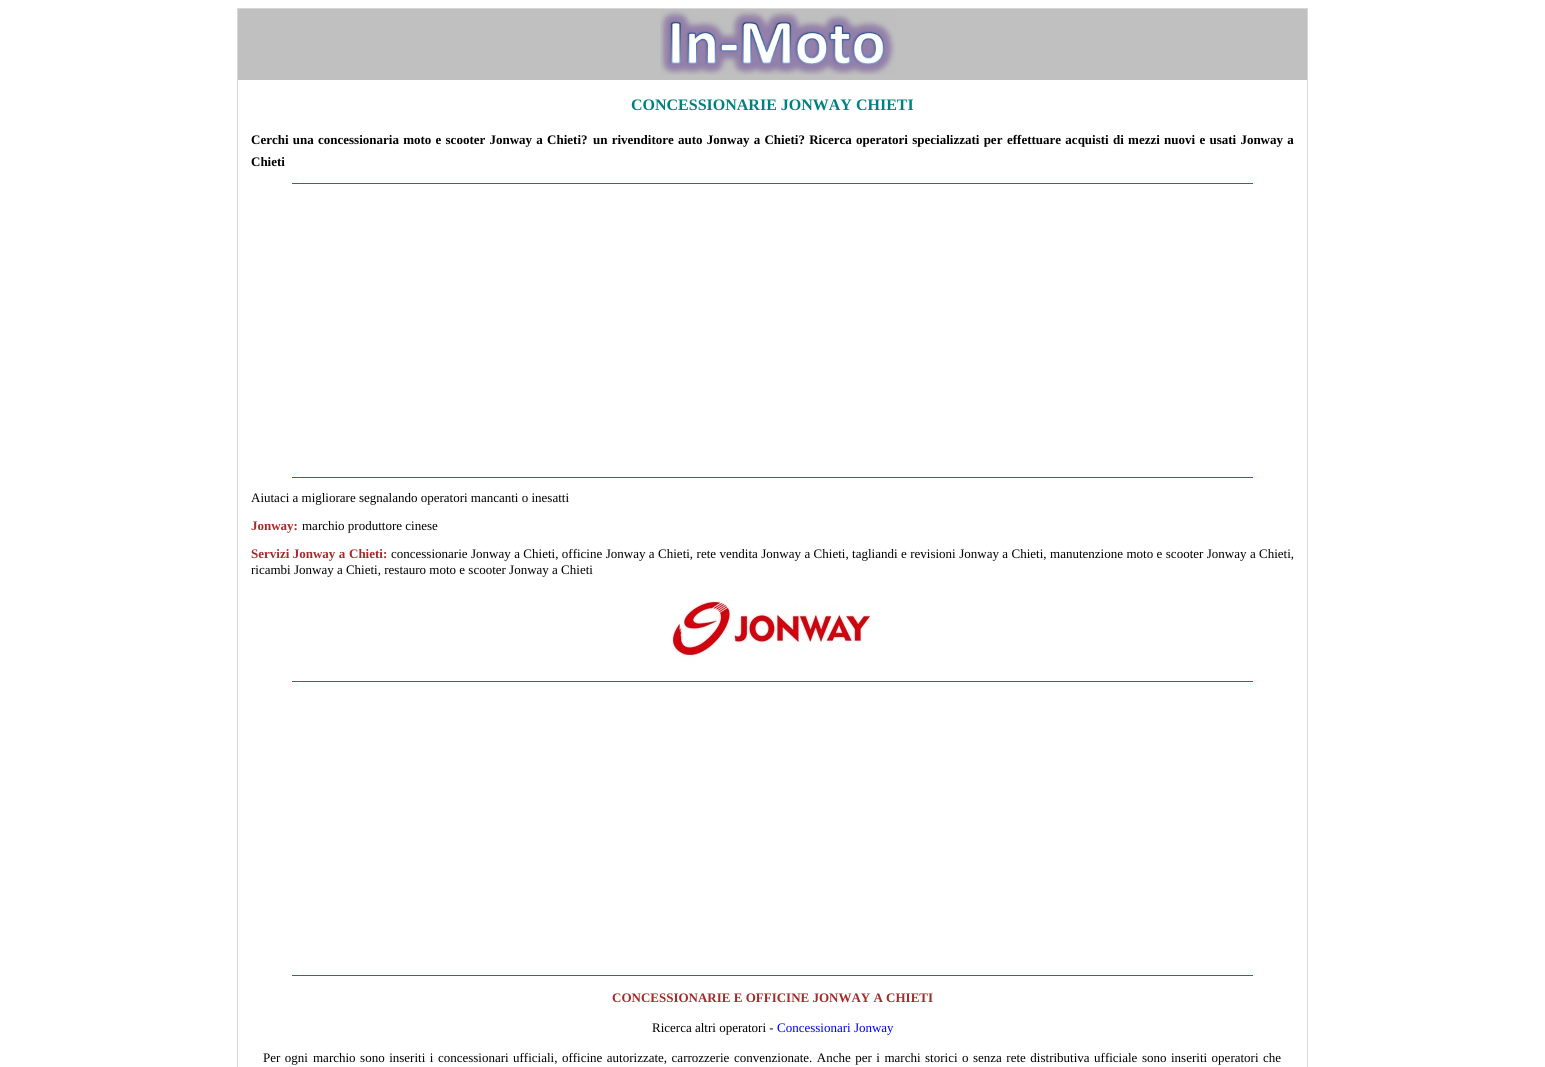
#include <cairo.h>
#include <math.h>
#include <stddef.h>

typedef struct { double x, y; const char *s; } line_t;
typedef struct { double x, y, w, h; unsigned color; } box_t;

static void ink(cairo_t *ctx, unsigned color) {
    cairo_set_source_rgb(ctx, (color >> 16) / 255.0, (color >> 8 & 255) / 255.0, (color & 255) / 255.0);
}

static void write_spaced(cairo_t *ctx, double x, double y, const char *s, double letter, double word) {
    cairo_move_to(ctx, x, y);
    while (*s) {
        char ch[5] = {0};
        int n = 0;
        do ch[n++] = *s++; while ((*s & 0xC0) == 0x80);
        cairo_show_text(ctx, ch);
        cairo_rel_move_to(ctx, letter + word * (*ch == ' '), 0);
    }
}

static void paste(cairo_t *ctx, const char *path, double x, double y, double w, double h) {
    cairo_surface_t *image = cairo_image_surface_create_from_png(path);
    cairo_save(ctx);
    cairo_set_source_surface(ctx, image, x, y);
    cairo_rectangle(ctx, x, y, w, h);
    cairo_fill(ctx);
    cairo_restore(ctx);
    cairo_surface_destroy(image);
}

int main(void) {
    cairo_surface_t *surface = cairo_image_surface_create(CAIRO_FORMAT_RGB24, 1545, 1067);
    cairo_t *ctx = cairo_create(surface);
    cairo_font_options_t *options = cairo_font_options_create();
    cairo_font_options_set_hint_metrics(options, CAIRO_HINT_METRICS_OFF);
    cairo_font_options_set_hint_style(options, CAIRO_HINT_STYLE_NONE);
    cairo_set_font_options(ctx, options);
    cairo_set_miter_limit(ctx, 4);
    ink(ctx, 0xFFFFFF);
    cairo_paint(ctx);
    {
        static const box_t items[] = {
            {237, 8, 1071, 1, 0xD7D7D7},
            {1307, 8, 1, 1059, 0xD7D7D7},
            {237, 8, 1, 1059, 0xD7D7D7},
            {238, 9, 1069, 71, 0xC0C0C0},
        };
        for (size_t i = 0; i < sizeof items / sizeof *items; i++) {
            ink(ctx, items[i].color);
            cairo_rectangle(ctx, items[i].x, items[i].y, items[i].w, items[i].h);
            cairo_fill(ctx);
        }
    }
    paste(ctx, "media/1.png", 660, 10, 236, 65);
    cairo_select_font_face(ctx, "Liberation Serif", CAIRO_FONT_SLANT_NORMAL, CAIRO_FONT_WEIGHT_BOLD);
    cairo_set_font_size(ctx, 16);
    ink(ctx, 0x008080);
    cairo_move_to(ctx, 631, 110);
    cairo_show_text(ctx, "CONCESSIONARIE JONWAY CHIETI");
    cairo_set_font_size(ctx, 13);
    ink(ctx, 0x000000);
    {
        static const line_t items[] = {
            {251, 144, "Cerchi una concessionaria moto e scooter Jonway a Chieti?"},
            {593, 144, "un rivenditore auto Jonway a Chieti? Ricerca operatori specializzati per"},
            {1007, 144, "effettuare acquisti di mezzi nuovi e usati Jonway a"},
        };
        for (size_t i = 0; i < sizeof items / sizeof *items; i++) {
            write_spaced(ctx, items[i].x, items[i].y, items[i].s, 0, 1);
        }
    }
    cairo_move_to(ctx, 251, 166);
    cairo_show_text(ctx, "Chieti");
    ink(ctx, 0x008080);
    cairo_rectangle(ctx, 292, 183, 961, 1);
    cairo_fill(ctx);
    cairo_rectangle(ctx, 292, 477, 961, 1);
    cairo_fill(ctx);
    cairo_select_font_face(ctx, "Liberation Serif", CAIRO_FONT_SLANT_NORMAL, CAIRO_FONT_WEIGHT_NORMAL);
    ink(ctx, 0x000000);
    cairo_move_to(ctx, 251, 502);
    cairo_show_text(ctx, "Aiutaci a migliorare segnalando operatori mancanti o inesatti");
    cairo_select_font_face(ctx, "Liberation Serif", CAIRO_FONT_SLANT_NORMAL, CAIRO_FONT_WEIGHT_BOLD);
    ink(ctx, 0xA52A2A);
    cairo_move_to(ctx, 251, 530);
    cairo_show_text(ctx, "Jonway:");
    cairo_select_font_face(ctx, "Liberation Serif", CAIRO_FONT_SLANT_NORMAL, CAIRO_FONT_WEIGHT_NORMAL);
    ink(ctx, 0x000000);
    cairo_move_to(ctx, 302, 530);
    cairo_show_text(ctx, "marchio produttore cinese");
    cairo_select_font_face(ctx, "Liberation Serif", CAIRO_FONT_SLANT_NORMAL, CAIRO_FONT_WEIGHT_BOLD);
    ink(ctx, 0xA52A2A);
    write_spaced(ctx, 251, 558, "Servizi Jonway a", 0, 0.2);
    cairo_move_to(ctx, 349, 558);
    cairo_show_text(ctx, "Chieti:");
    cairo_select_font_face(ctx, "Liberation Serif", CAIRO_FONT_SLANT_NORMAL, CAIRO_FONT_WEIGHT_NORMAL);
    ink(ctx, 0x000000);
    write_spaced(ctx, 391, 558, "concessionarie Jonway a Chieti, officine Jonway a Chieti, rete vendita Jonway a Chieti, tagliandi e revisioni Jonway a Chieti, manutenzione moto e scooter Jonway a", 0, 0.2);
    cairo_move_to(ctx, 1259, 558);
    cairo_show_text(ctx, "Chieti,");
    cairo_move_to(ctx, 251, 574);
    cairo_show_text(ctx, "ricambi Jonway a Chieti, restauro moto e scooter Jonway a Chieti");
    paste(ctx, "media/2.png", 672, 595, 200, 65);
    ink(ctx, 0x008080);
    cairo_rectangle(ctx, 292, 681, 961, 1);
    cairo_fill(ctx);
    cairo_rectangle(ctx, 292, 975, 961, 1);
    cairo_fill(ctx);
    cairo_select_font_face(ctx, "Liberation Serif", CAIRO_FONT_SLANT_NORMAL, CAIRO_FONT_WEIGHT_BOLD);
    ink(ctx, 0xA52A2A);
    cairo_move_to(ctx, 612, 1002);
    cairo_show_text(ctx, "CONCESSIONARIE E OFFICINE JONWAY A CHIETI");
    cairo_select_font_face(ctx, "Liberation Serif", CAIRO_FONT_SLANT_NORMAL, CAIRO_FONT_WEIGHT_NORMAL);
    ink(ctx, 0x000000);
    cairo_move_to(ctx, 652, 1032);
    cairo_show_text(ctx, "Ricerca altri operatori -");
    ink(ctx, 0x0000FF);
    cairo_move_to(ctx, 777, 1032);
    cairo_show_text(ctx, "Concessionari Jonway");
    ink(ctx, 0x000000);
    {
        static const line_t items[] = {
            {263, 1062, "Per ogni"},
            {313, 1062, "marchio sono inseriti i concessionari"},
            {513, 1062, "ufficiali, officine autorizzate, carrozzerie"},
            {734, 1062, "convenzionate. Anche per i marchi storici o"},
            {973, 1062, "senza rete distributiva ufficiale sono"},
            {1171, 1062, "inseriti operatori che"},
        };
        for (size_t i = 0; i < sizeof items / sizeof *items; i++) {
            write_spaced(ctx, items[i].x, items[i].y, items[i].s, 0, 1.25);
        }
    }
    cairo_surface_write_to_png(surface, "image.png");
    cairo_font_options_destroy(options);
    cairo_destroy(ctx);
    cairo_surface_destroy(surface);
    return 0;
}
